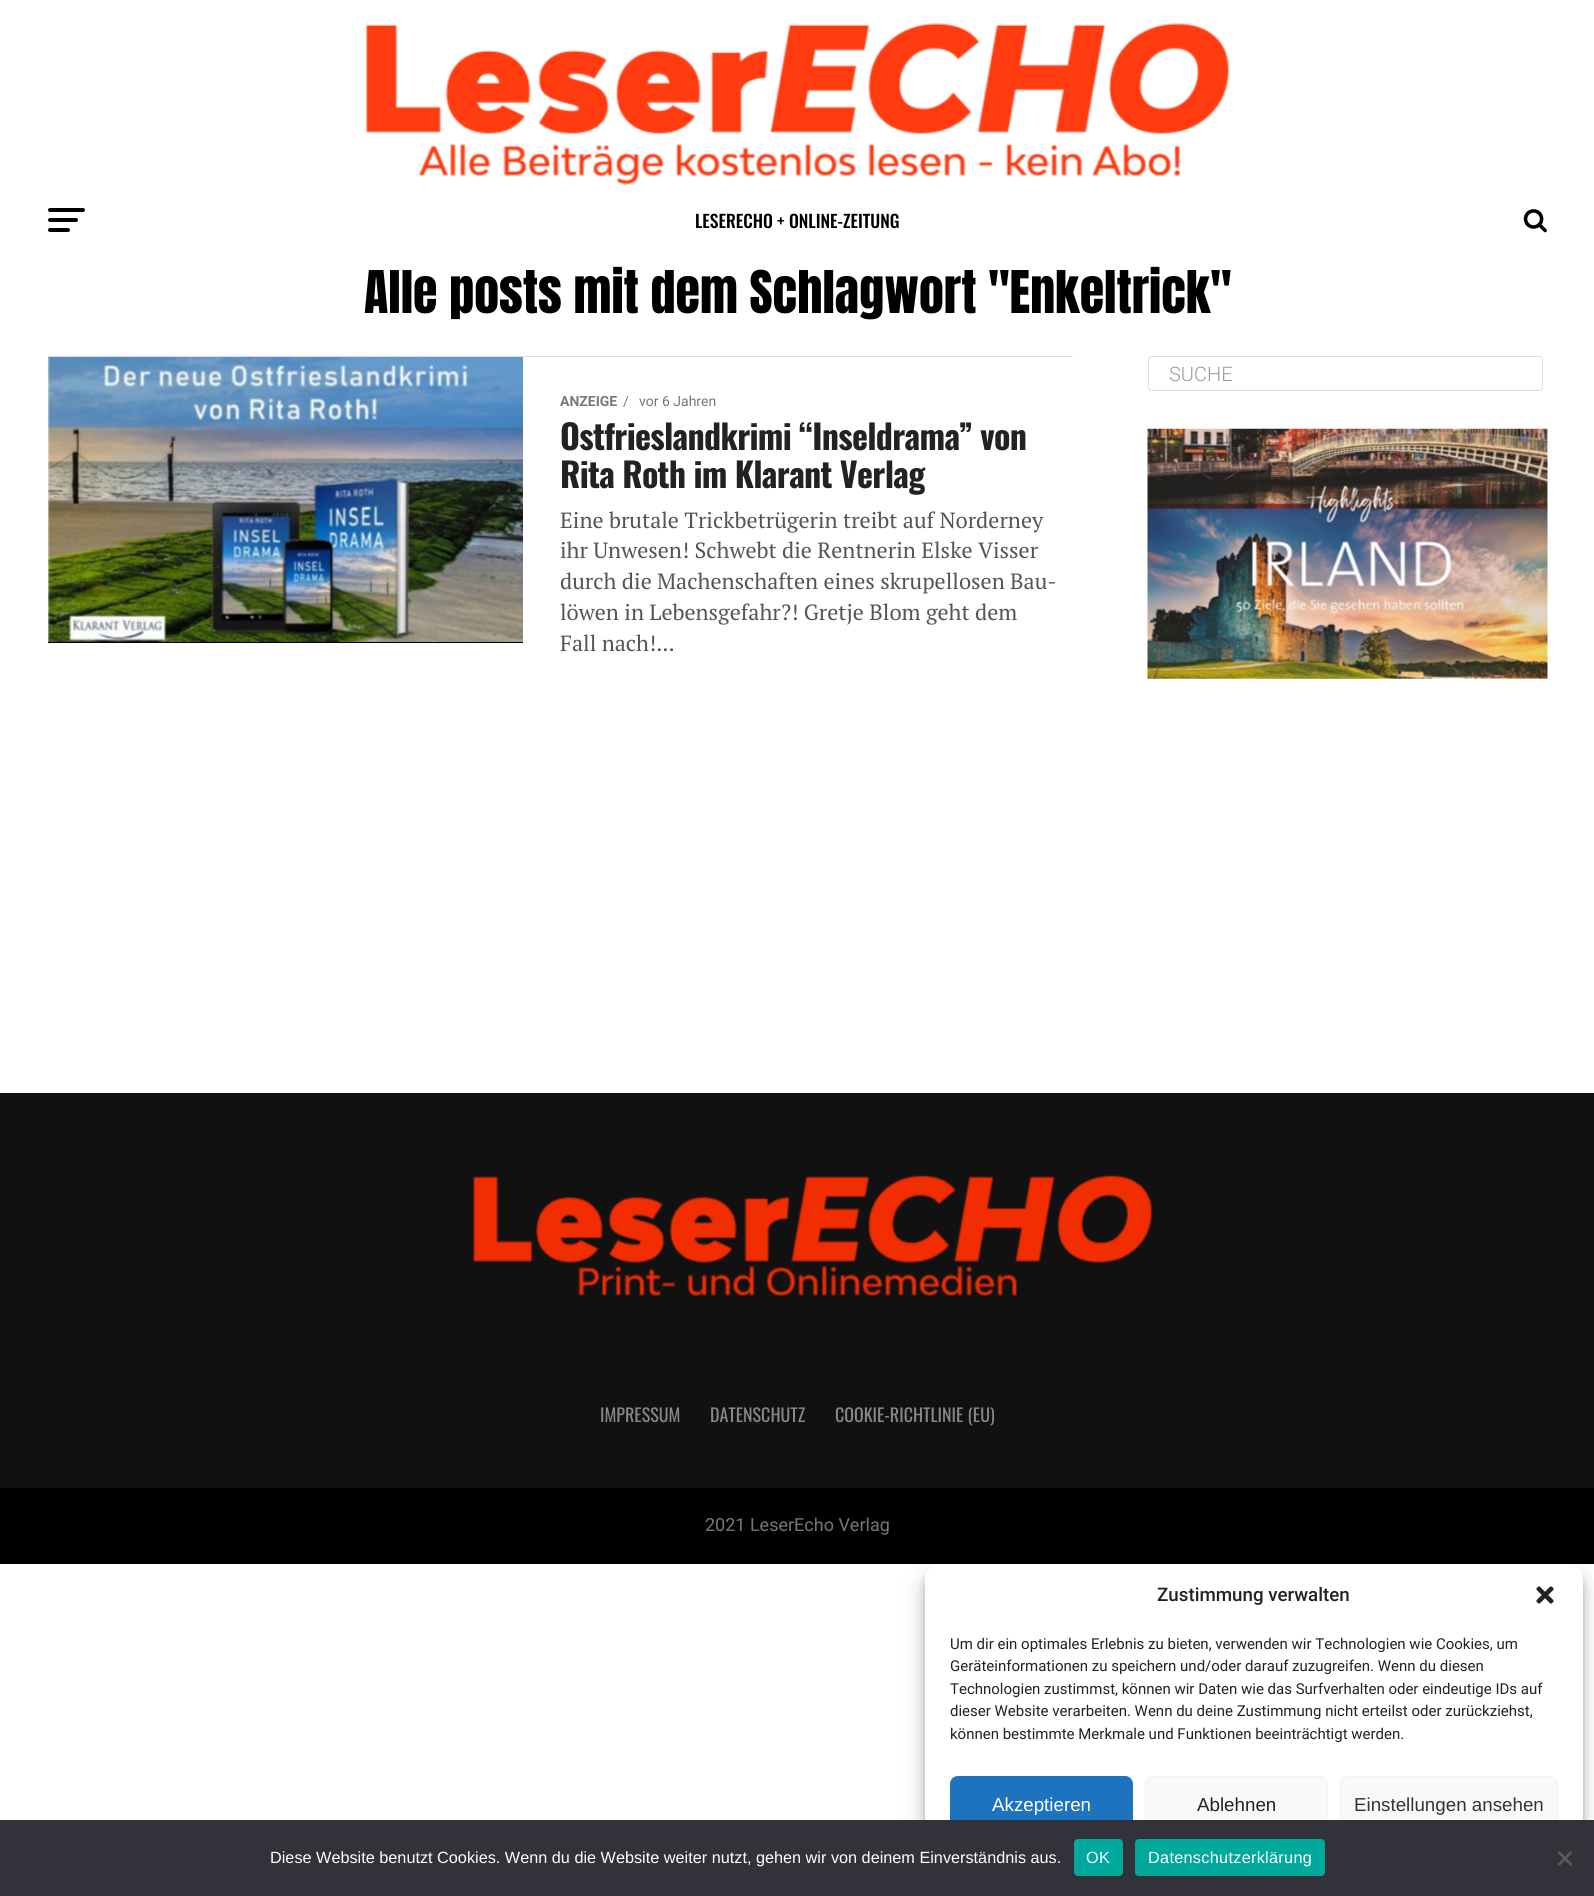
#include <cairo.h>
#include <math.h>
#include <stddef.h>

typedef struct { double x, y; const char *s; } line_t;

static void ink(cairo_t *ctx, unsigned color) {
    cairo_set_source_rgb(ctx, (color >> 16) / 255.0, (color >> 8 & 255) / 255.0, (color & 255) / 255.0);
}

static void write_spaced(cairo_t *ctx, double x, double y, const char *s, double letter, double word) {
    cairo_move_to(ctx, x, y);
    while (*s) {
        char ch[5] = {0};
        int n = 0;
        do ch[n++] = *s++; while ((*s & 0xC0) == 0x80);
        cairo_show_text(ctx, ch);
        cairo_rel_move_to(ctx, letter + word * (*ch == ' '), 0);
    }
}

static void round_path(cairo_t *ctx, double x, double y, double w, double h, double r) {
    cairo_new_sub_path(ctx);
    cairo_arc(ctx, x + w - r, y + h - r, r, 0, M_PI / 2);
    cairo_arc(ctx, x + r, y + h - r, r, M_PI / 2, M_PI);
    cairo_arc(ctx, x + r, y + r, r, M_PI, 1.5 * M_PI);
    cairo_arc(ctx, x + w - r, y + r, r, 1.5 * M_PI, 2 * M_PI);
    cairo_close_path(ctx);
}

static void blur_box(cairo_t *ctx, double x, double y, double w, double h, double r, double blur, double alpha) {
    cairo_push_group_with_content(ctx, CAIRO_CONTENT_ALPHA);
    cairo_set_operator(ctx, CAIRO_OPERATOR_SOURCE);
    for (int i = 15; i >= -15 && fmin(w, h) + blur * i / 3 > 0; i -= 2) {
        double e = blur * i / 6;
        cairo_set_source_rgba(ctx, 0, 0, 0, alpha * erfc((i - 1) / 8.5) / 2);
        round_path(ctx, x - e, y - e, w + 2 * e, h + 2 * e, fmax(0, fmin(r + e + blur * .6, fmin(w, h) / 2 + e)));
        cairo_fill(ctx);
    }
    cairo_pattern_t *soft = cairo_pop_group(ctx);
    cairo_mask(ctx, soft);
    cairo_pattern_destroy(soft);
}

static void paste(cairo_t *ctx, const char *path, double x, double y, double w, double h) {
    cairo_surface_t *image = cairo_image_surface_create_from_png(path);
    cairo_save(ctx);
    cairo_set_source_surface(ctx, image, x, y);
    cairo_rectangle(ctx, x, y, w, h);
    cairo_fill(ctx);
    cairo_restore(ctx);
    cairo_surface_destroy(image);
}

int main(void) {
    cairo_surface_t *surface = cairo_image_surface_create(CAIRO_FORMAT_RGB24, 1594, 1896);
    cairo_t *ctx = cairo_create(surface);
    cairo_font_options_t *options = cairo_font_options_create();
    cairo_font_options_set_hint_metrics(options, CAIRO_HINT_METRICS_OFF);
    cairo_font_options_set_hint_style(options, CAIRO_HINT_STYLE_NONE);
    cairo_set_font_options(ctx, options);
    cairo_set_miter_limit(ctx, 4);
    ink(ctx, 0xFFFFFF);
    cairo_paint(ctx);
    paste(ctx, "media/1.png", 366, 22, 863, 163);
    ink(ctx, 0x000000);
    round_path(ctx, 48, 208, 37, 4, 2);
    cairo_fill(ctx);
    round_path(ctx, 48, 218, 30, 4, 2);
    cairo_fill(ctx);
    round_path(ctx, 48, 228, 22, 4, 2);
    cairo_fill(ctx);
    cairo_select_font_face(ctx, "Oswald Medium", CAIRO_FONT_SLANT_NORMAL, CAIRO_FONT_WEIGHT_NORMAL);
    cairo_set_font_size(ctx, 17.5);
    cairo_move_to(ctx, 695, 228);
    cairo_show_text(ctx, "LESERECHO + ONLINE-ZEITUNG");
    paste(ctx, "media/2.png", 1523, 209, 24, 24);
    cairo_select_font_face(ctx, "Anton", CAIRO_FONT_SLANT_NORMAL, CAIRO_FONT_WEIGHT_NORMAL);
    cairo_set_font_size(ctx, 50);
    cairo_move_to(ctx, 364, 313);
    cairo_show_text(ctx, "Alle posts mit dem Schlagwort \"Enkeltrick\"");
    round_path(ctx, 1148.5, 356.5, 394, 34, 3.5);
    ink(ctx, 0xDDDDDD);
    cairo_set_line_width(ctx, 1);
    cairo_stroke(ctx);
    cairo_select_font_face(ctx, "Roboto Light", CAIRO_FONT_SLANT_NORMAL, CAIRO_FONT_WEIGHT_NORMAL);
    cairo_set_font_size(ctx, 20);
    ink(ctx, 0x999999);
    cairo_move_to(ctx, 1169, 381);
    cairo_show_text(ctx, "SUCHE");
    paste(ctx, "media/3.png", 1147, 428, 401, 251);
    ink(ctx, 0xDDDDDD);
    cairo_rectangle(ctx, 48, 356, 1025, 1);
    cairo_fill(ctx);
    ink(ctx, 0x000000);
    cairo_rectangle(ctx, 48, 642, 475, 1);
    cairo_fill(ctx);
    paste(ctx, "media/4.png", 48, 357, 475, 285);
    cairo_select_font_face(ctx, "Roboto", CAIRO_FONT_SLANT_NORMAL, CAIRO_FONT_WEIGHT_BOLD);
    cairo_set_font_size(ctx, 14);
    ink(ctx, 0x777777);
    cairo_move_to(ctx, 560, 406);
    cairo_show_text(ctx, "ANZEIGE");
    cairo_select_font_face(ctx, "Roboto", CAIRO_FONT_SLANT_NORMAL, CAIRO_FONT_WEIGHT_NORMAL);
    cairo_move_to(ctx, 623, 406);
    cairo_show_text(ctx, "/");
    cairo_move_to(ctx, 639, 406);
    cairo_show_text(ctx, "vor 6 Jahren");
    cairo_select_font_face(ctx, "Oswald", CAIRO_FONT_SLANT_NORMAL, CAIRO_FONT_WEIGHT_BOLD);
    cairo_set_font_size(ctx, 34);
    ink(ctx, 0x222222);
    write_spaced(ctx, 560, 450, "Ostfrieslandkrimi “Inseldrama” von", -0.7, 0);
    write_spaced(ctx, 560, 488, "Rita Roth im Klarant Verlag", -0.7, 0);
    cairo_select_font_face(ctx, "PT Serif", CAIRO_FONT_SLANT_NORMAL, CAIRO_FONT_WEIGHT_NORMAL);
    cairo_set_font_size(ctx, 22);
    ink(ctx, 0x555555);
    {
        static const line_t items[] = {
            {560, 528, "Eine brutale Trickbetrügerin treibt auf Norderney"},
            {560, 558, "ihr Unwesen! Schwebt die Rentnerin Elske Visser"},
            {560, 589, "durch die Machenschaften eines skrupellosen Bau-"},
            {560, 620, "löwen in Lebensgefahr?! Gretje Blom geht dem"},
            {560, 651, "Fall nach!..."},
        };
        for (size_t i = 0; i < sizeof items / sizeof *items; i++) {
            cairo_move_to(ctx, items[i].x, items[i].y);
            cairo_show_text(ctx, items[i].s);
        }
    }
    ink(ctx, 0x111111);
    cairo_rectangle(ctx, 0, 1093, 1594, 395);
    cairo_fill(ctx);
    paste(ctx, "media/5.png", 473, 1175, 680, 122);
    cairo_select_font_face(ctx, "Oswald", CAIRO_FONT_SLANT_NORMAL, CAIRO_FONT_WEIGHT_NORMAL);
    cairo_set_font_size(ctx, 18);
    ink(ctx, 0x888888);
    {
        static const line_t items[] = {
            {600, 1422, "IMPRESSUM"},
            {710, 1422, "DATENSCHUTZ"},
            {835, 1422, "COOKIE-RICHTLINIE (EU)"},
        };
        for (size_t i = 0; i < sizeof items / sizeof *items; i++) {
            cairo_move_to(ctx, items[i].x, items[i].y);
            cairo_show_text(ctx, items[i].s);
        }
    }
    ink(ctx, 0x000000);
    cairo_rectangle(ctx, 0, 1488, 1594, 76);
    cairo_fill(ctx);
    cairo_select_font_face(ctx, "Roboto", CAIRO_FONT_SLANT_NORMAL, CAIRO_FONT_WEIGHT_NORMAL);
    ink(ctx, 0x777777);
    cairo_move_to(ctx, 705, 1531);
    cairo_show_text(ctx, "2021 LeserEcho Verlag");
    ink(ctx, 0x000000);
    blur_box(ctx, 925, 1571, 658, 320, 15, 4, 0.23);
    blur_box(ctx, 925, 1576, 658, 320, 15, 12.5, 0.19);
    ink(ctx, 0xFFFFFF);
    round_path(ctx, 925, 1564, 658, 320, 15);
    cairo_fill(ctx);
    cairo_select_font_face(ctx, "Roboto Medium", CAIRO_FONT_SLANT_NORMAL, CAIRO_FONT_WEIGHT_NORMAL);
    cairo_set_font_size(ctx, 18.75);
    ink(ctx, 0x222222);
    cairo_move_to(ctx, 1157, 1601);
    cairo_show_text(ctx, "Zustimmung verwalten");
    paste(ctx, "media/6.png", 1536, 1586, 18, 18);
    cairo_select_font_face(ctx, "Roboto", CAIRO_FONT_SLANT_NORMAL, CAIRO_FONT_WEIGHT_NORMAL);
    cairo_set_font_size(ctx, 15);
    {
        static const line_t items[] = {
            {950, 1649, "Um dir ein optimales Erlebnis zu bieten, verwenden wir Technologien wie Cookies, um"},
            {950, 1671, "Geräteinformationen zu speichern und/oder darauf zuzugreifen. Wenn du diesen"},
            {950, 1694, "Technologien zustimmst, können wir Daten wie das Surfverhalten oder eindeutige IDs auf"},
            {950, 1716, "dieser Website verarbeiten. Wenn du deine Zustimmung nicht erteilst oder zurückziehst,"},
            {950, 1739, "können bestimmte Merkmale und Funktionen beeinträchtigt werden."},
        };
        for (size_t i = 0; i < sizeof items / sizeof *items; i++) {
            cairo_move_to(ctx, items[i].x, items[i].y);
            cairo_show_text(ctx, items[i].s);
        }
    }
    ink(ctx, 0x1E73BE);
    round_path(ctx, 950.5, 1776.5, 182, 56, 7.5);
    cairo_fill_preserve(ctx);
    cairo_stroke(ctx);
    cairo_select_font_face(ctx, "Liberation Sans", CAIRO_FONT_SLANT_NORMAL, CAIRO_FONT_WEIGHT_NORMAL);
    cairo_set_font_size(ctx, 18.75);
    ink(ctx, 0xFFFFFF);
    cairo_move_to(ctx, 992, 1811);
    cairo_show_text(ctx, "Akzeptieren");
    ink(ctx, 0xF9F9F9);
    round_path(ctx, 1145.5, 1776.5, 182, 56, 7.5);
    cairo_fill_preserve(ctx);
    ink(ctx, 0xF2F2F2);
    cairo_stroke(ctx);
    ink(ctx, 0x222222);
    cairo_move_to(ctx, 1197, 1811);
    cairo_show_text(ctx, "Ablehnen");
    ink(ctx, 0xF9F9F9);
    round_path(ctx, 1340.5, 1776.5, 217, 56, 7.5);
    cairo_fill_preserve(ctx);
    ink(ctx, 0xF2F2F2);
    cairo_stroke(ctx);
    ink(ctx, 0x333333);
    cairo_move_to(ctx, 1354, 1811);
    cairo_show_text(ctx, "Einstellungen ansehen");
    ink(ctx, 0x32323A);
    cairo_rectangle(ctx, 0, 1820, 1594, 76);
    cairo_fill(ctx);
    cairo_set_font_size(ctx, 16.25);
    ink(ctx, 0xFFFFFF);
    cairo_move_to(ctx, 270, 1863);
    cairo_show_text(ctx, "Diese Website benutzt Cookies. Wenn du die Website weiter nutzt, gehen wir von deinem Einverständnis aus.");
    ink(ctx, 0x00A99D);
    round_path(ctx, 1074, 1839, 49, 37, 4);
    cairo_fill(ctx);
    ink(ctx, 0xFFFFFF);
    write_spaced(ctx, 1086, 1863, "OK", 0.3, 0);
    ink(ctx, 0x00A99D);
    round_path(ctx, 1135, 1839, 190, 37, 4);
    cairo_fill(ctx);
    ink(ctx, 0xFFFFFF);
    write_spaced(ctx, 1148, 1863, "Datenschutzerklärung", 0.3, 0);
    ink(ctx, 0x59595D);
    cairo_new_path(ctx);
    cairo_move_to(ctx, 1570.5, 1851);
    cairo_line_to(ctx, 1572.5, 1852.5);
    cairo_line_to(ctx, 1559.5, 1866);
    cairo_line_to(ctx, 1557.5, 1864);
    cairo_close_path(ctx);
    cairo_fill(ctx);
    cairo_new_path(ctx);
    cairo_move_to(ctx, 1557.5, 1852.5);
    cairo_line_to(ctx, 1559.5, 1851);
    cairo_line_to(ctx, 1572.5, 1864);
    cairo_line_to(ctx, 1570.5, 1866);
    cairo_close_path(ctx);
    cairo_fill(ctx);
    cairo_surface_write_to_png(surface, "image.png");
    cairo_font_options_destroy(options);
    cairo_destroy(ctx);
    cairo_surface_destroy(surface);
    return 0;
}
